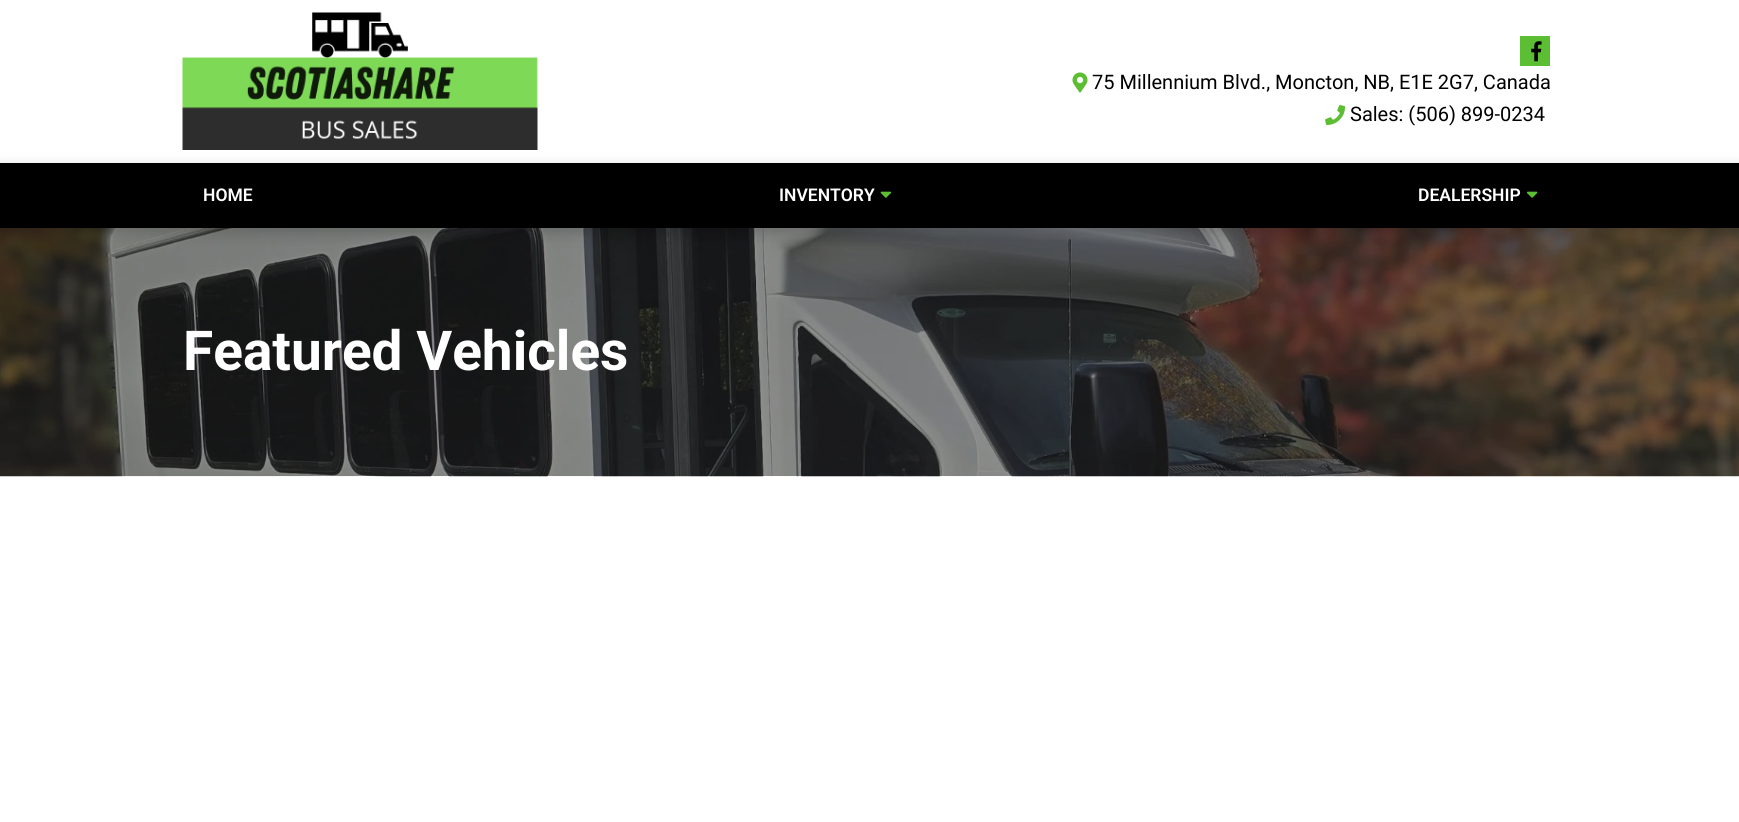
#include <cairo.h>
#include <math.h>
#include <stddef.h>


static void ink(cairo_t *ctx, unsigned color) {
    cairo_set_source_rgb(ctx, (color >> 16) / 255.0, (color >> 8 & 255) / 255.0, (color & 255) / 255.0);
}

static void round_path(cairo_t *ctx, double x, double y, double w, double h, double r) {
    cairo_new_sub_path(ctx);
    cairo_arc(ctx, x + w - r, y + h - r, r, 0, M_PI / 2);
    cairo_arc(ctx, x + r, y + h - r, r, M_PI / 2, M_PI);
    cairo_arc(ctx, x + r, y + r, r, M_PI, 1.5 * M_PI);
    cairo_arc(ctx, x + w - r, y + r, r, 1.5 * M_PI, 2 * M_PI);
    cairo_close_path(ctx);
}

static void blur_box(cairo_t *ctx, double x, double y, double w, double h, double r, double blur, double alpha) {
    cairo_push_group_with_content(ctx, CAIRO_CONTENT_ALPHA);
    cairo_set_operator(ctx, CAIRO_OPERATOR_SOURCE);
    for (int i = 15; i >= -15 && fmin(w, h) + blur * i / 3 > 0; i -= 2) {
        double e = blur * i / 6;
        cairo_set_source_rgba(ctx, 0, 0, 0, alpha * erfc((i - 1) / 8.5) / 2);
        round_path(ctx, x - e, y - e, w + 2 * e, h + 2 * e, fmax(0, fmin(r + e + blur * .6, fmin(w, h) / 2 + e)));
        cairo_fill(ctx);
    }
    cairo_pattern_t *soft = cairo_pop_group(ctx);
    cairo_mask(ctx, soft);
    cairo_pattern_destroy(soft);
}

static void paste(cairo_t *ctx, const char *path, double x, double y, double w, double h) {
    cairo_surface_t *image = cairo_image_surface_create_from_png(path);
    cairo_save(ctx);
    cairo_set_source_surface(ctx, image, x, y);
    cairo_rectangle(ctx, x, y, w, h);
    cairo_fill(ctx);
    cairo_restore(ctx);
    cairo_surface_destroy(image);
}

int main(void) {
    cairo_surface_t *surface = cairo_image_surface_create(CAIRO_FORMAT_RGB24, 1739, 822);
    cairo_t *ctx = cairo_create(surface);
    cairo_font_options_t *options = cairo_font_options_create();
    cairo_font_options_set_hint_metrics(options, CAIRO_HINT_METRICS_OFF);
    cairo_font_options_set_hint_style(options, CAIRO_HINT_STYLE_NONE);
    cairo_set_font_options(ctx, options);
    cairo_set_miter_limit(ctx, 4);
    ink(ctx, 0xFFFFFF);
    cairo_paint(ctx);
    paste(ctx, "media/1.png", 182, 12, 356, 138);
    ink(ctx, 0x5CBE32);
    cairo_rectangle(ctx, 1520, 36, 30, 30);
    cairo_fill(ctx);
    paste(ctx, "media/2.png", 1531, 41, 11, 21);
    paste(ctx, "media/3.png", 1072, 72, 16, 21);
    cairo_select_font_face(ctx, "Roboto", CAIRO_FONT_SLANT_NORMAL, CAIRO_FONT_WEIGHT_NORMAL);
    cairo_set_font_size(ctx, 20);
    ink(ctx, 0x000000);
    cairo_move_to(ctx, 1092, 89);
    cairo_show_text(ctx, "75 Millennium Blvd., Moncton, NB, E1E 2G7, Canada");
    paste(ctx, "media/4.png", 1325, 105, 20, 20);
    cairo_move_to(ctx, 1350, 121);
    cairo_show_text(ctx, "Sales: (506) 899-0234");
    paste(ctx, "media/7.png", 0, 228, 1739, 249);
    ink(ctx, 0x000000);
    blur_box(ctx, 0, 168, 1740, 65, 0, 7.5, 0.2);
    ink(ctx, 0x000000);
    cairo_rectangle(ctx, 0, 163, 1739, 65);
    cairo_fill(ctx);
    cairo_select_font_face(ctx, "Roboto SemiBold", CAIRO_FONT_SLANT_NORMAL, CAIRO_FONT_WEIGHT_NORMAL);
    cairo_set_font_size(ctx, 17.5);
    ink(ctx, 0xFFFFFF);
    cairo_move_to(ctx, 203, 201);
    cairo_show_text(ctx, "HOME");
    cairo_move_to(ctx, 779, 201);
    cairo_show_text(ctx, "INVENTORY");
    paste(ctx, "media/5.png", 880, 191, 12, 7);
    cairo_move_to(ctx, 1418, 201);
    cairo_show_text(ctx, "DEALERSHIP");
    paste(ctx, "media/6.png", 1526, 191, 12, 7);
    cairo_select_font_face(ctx, "Roboto", CAIRO_FONT_SLANT_NORMAL, CAIRO_FONT_WEIGHT_BOLD);
    cairo_set_font_size(ctx, 55);
    cairo_move_to(ctx, 183, 370);
    cairo_show_text(ctx, "Featured Vehicles");
    cairo_surface_write_to_png(surface, "image.png");
    cairo_font_options_destroy(options);
    cairo_destroy(ctx);
    cairo_surface_destroy(surface);
    return 0;
}
